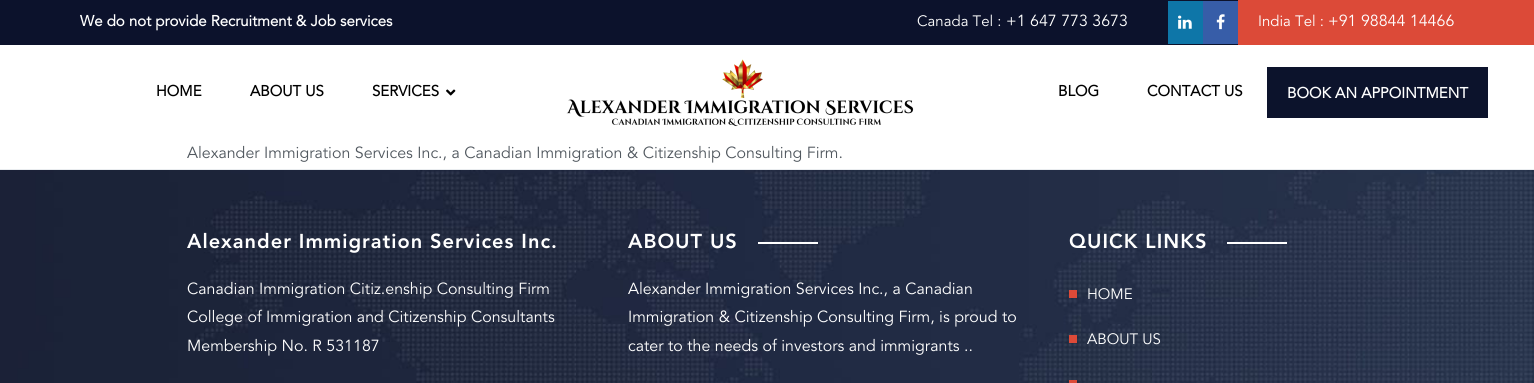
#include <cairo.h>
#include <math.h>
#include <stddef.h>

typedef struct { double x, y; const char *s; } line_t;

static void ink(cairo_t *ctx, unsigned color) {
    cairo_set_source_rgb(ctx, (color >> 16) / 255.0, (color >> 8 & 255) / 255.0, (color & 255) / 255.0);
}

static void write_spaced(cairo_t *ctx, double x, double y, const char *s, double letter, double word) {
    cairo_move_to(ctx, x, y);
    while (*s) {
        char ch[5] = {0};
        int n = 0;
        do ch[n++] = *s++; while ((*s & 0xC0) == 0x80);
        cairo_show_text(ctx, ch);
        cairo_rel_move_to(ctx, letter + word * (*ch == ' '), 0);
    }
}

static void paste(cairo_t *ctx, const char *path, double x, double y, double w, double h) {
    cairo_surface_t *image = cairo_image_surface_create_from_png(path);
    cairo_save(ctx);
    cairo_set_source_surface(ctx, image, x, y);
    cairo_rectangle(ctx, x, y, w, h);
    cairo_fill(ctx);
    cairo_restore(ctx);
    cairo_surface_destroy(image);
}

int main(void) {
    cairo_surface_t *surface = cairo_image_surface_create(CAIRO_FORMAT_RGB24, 1534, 383);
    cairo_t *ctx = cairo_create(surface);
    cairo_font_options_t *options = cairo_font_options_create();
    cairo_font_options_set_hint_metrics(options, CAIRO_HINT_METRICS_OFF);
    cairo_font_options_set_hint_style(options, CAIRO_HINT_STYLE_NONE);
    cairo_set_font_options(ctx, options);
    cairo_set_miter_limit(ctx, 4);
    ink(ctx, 0xFFFFFF);
    cairo_paint(ctx);
    ink(ctx, 0x0C122C);
    cairo_rectangle(ctx, 0, 0, 1238, 45);
    cairo_fill(ctx);
    cairo_select_font_face(ctx, "Avenir", CAIRO_FONT_SLANT_NORMAL, CAIRO_FONT_WEIGHT_BOLD);
    cairo_set_font_size(ctx, 15);
    ink(ctx, 0xFFFFFF);
    cairo_move_to(ctx, 80, 26);
    cairo_show_text(ctx, "We do not provide Recruitment & Job services");
    cairo_select_font_face(ctx, "Avenir", CAIRO_FONT_SLANT_NORMAL, CAIRO_FONT_WEIGHT_NORMAL);
    cairo_move_to(ctx, 917, 26);
    cairo_show_text(ctx, "Canada Tel :");
    cairo_set_font_size(ctx, 16);
    cairo_move_to(ctx, 1006, 26);
    cairo_show_text(ctx, "+1 647 773 3673");
    ink(ctx, 0x0E76A8);
    cairo_rectangle(ctx, 1168, 1, 35, 43);
    cairo_fill(ctx);
    paste(ctx, "media/1.png", 1178, 15, 14, 14);
    ink(ctx, 0x375DA8);
    cairo_rectangle(ctx, 1203, 1, 35, 43);
    cairo_fill(ctx);
    paste(ctx, "media/2.png", 1216, 14, 9, 16);
    ink(ctx, 0xDC4A38);
    cairo_rectangle(ctx, 1238, 0, 296, 45);
    cairo_fill(ctx);
    cairo_set_font_size(ctx, 15);
    ink(ctx, 0xFFFFFF);
    cairo_move_to(ctx, 1258, 26);
    cairo_show_text(ctx, "India Tel :");
    cairo_set_font_size(ctx, 16);
    cairo_move_to(ctx, 1328, 26);
    cairo_show_text(ctx, "+91 98844 14466");
    cairo_select_font_face(ctx, "Avenir", CAIRO_FONT_SLANT_NORMAL, CAIRO_FONT_WEIGHT_BOLD);
    cairo_set_font_size(ctx, 15);
    ink(ctx, 0x000000);
    {
        static const line_t items[] = {
            {156, 96, "HOME"},
            {250, 96, "ABOUT US"},
            {372, 96, "SERVICES"},
        };
        for (size_t i = 0; i < sizeof items / sizeof *items; i++) {
            cairo_move_to(ctx, items[i].x, items[i].y);
            cairo_show_text(ctx, items[i].s);
        }
    }
    paste(ctx, "media/3.png", 446, 89, 10, 7);
    paste(ctx, "media/4.png", 566, 59, 348, 68);
    cairo_move_to(ctx, 1058, 96);
    cairo_show_text(ctx, "BLOG");
    cairo_move_to(ctx, 1147, 96);
    cairo_show_text(ctx, "CONTACT US");
    ink(ctx, 0x0C132C);
    cairo_rectangle(ctx, 1267, 67, 221, 51);
    cairo_fill(ctx);
    ink(ctx, 0xFFFFFF);
    cairo_move_to(ctx, 1287, 98);
    cairo_show_text(ctx, "BOOK AN APPOINTMENT");
    cairo_select_font_face(ctx, "Avenir", CAIRO_FONT_SLANT_NORMAL, CAIRO_FONT_WEIGHT_NORMAL);
    cairo_set_font_size(ctx, 16);
    ink(ctx, 0x51585F);
    cairo_move_to(ctx, 187, 158);
    cairo_show_text(ctx, "Alexander Immigration Services Inc., a Canadian Immigration & Citizenship Consulting Firm.");
    paste(ctx, "media/5.png", 0, 170, 1534, 213);
    ink(ctx, 0xE9ECEF);
    cairo_rectangle(ctx, 0, 169, 1534, 1);
    cairo_fill(ctx);
    cairo_select_font_face(ctx, "Avenir Black", CAIRO_FONT_SLANT_NORMAL, CAIRO_FONT_WEIGHT_NORMAL);
    cairo_set_font_size(ctx, 20);
    ink(ctx, 0xFFFFFF);
    write_spaced(ctx, 187, 248, "Alexander Immigration Services Inc.", 1, 0);
    cairo_select_font_face(ctx, "Avenir", CAIRO_FONT_SLANT_NORMAL, CAIRO_FONT_WEIGHT_NORMAL);
    cairo_set_font_size(ctx, 16);
    {
        static const line_t items[] = {
            {187, 294, "Canadian Immigration Citiz.enship Consulting Firm"},
            {187, 322, "College of Immigration and Citizenship Consultants"},
            {187, 351, "Membership No. R 531187"},
        };
        for (size_t i = 0; i < sizeof items / sizeof *items; i++) {
            cairo_move_to(ctx, items[i].x, items[i].y);
            cairo_show_text(ctx, items[i].s);
        }
    }
    cairo_select_font_face(ctx, "Avenir Black", CAIRO_FONT_SLANT_NORMAL, CAIRO_FONT_WEIGHT_NORMAL);
    cairo_set_font_size(ctx, 20);
    write_spaced(ctx, 628, 248, "ABOUT US", 1, 0);
    cairo_rectangle(ctx, 758, 242, 60, 2);
    cairo_fill(ctx);
    cairo_select_font_face(ctx, "Avenir", CAIRO_FONT_SLANT_NORMAL, CAIRO_FONT_WEIGHT_NORMAL);
    cairo_set_font_size(ctx, 16);
    {
        static const line_t items[] = {
            {628, 294, "Alexander Immigration Services Inc., a Canadian"},
            {628, 322, "Immigration & Citizenship Consulting Firm, is proud to"},
            {628, 351, "cater to the needs of investors and immigrants .."},
        };
        for (size_t i = 0; i < sizeof items / sizeof *items; i++) {
            cairo_move_to(ctx, items[i].x, items[i].y);
            cairo_show_text(ctx, items[i].s);
        }
    }
    cairo_select_font_face(ctx, "Avenir Black", CAIRO_FONT_SLANT_NORMAL, CAIRO_FONT_WEIGHT_NORMAL);
    cairo_set_font_size(ctx, 20);
    write_spaced(ctx, 1069, 248, "QUICK LINKS", 1, 0);
    cairo_rectangle(ctx, 1227, 242, 60, 2);
    cairo_fill(ctx);
    ink(ctx, 0xDD4A38);
    cairo_rectangle(ctx, 1069, 290, 8, 8);
    cairo_fill(ctx);
    cairo_select_font_face(ctx, "Avenir", CAIRO_FONT_SLANT_NORMAL, CAIRO_FONT_WEIGHT_NORMAL);
    cairo_set_font_size(ctx, 15);
    ink(ctx, 0xFFFFFF);
    cairo_move_to(ctx, 1087, 299);
    cairo_show_text(ctx, "HOME");
    ink(ctx, 0xDD4A38);
    cairo_rectangle(ctx, 1069, 335, 8, 8);
    cairo_fill(ctx);
    ink(ctx, 0xFFFFFF);
    cairo_move_to(ctx, 1087, 344);
    cairo_show_text(ctx, "ABOUT US");
    ink(ctx, 0xDD4A38);
    cairo_rectangle(ctx, 1069, 380, 8, 3);
    cairo_fill(ctx);
    cairo_surface_write_to_png(surface, "image.png");
    cairo_font_options_destroy(options);
    cairo_destroy(ctx);
    cairo_surface_destroy(surface);
    return 0;
}
